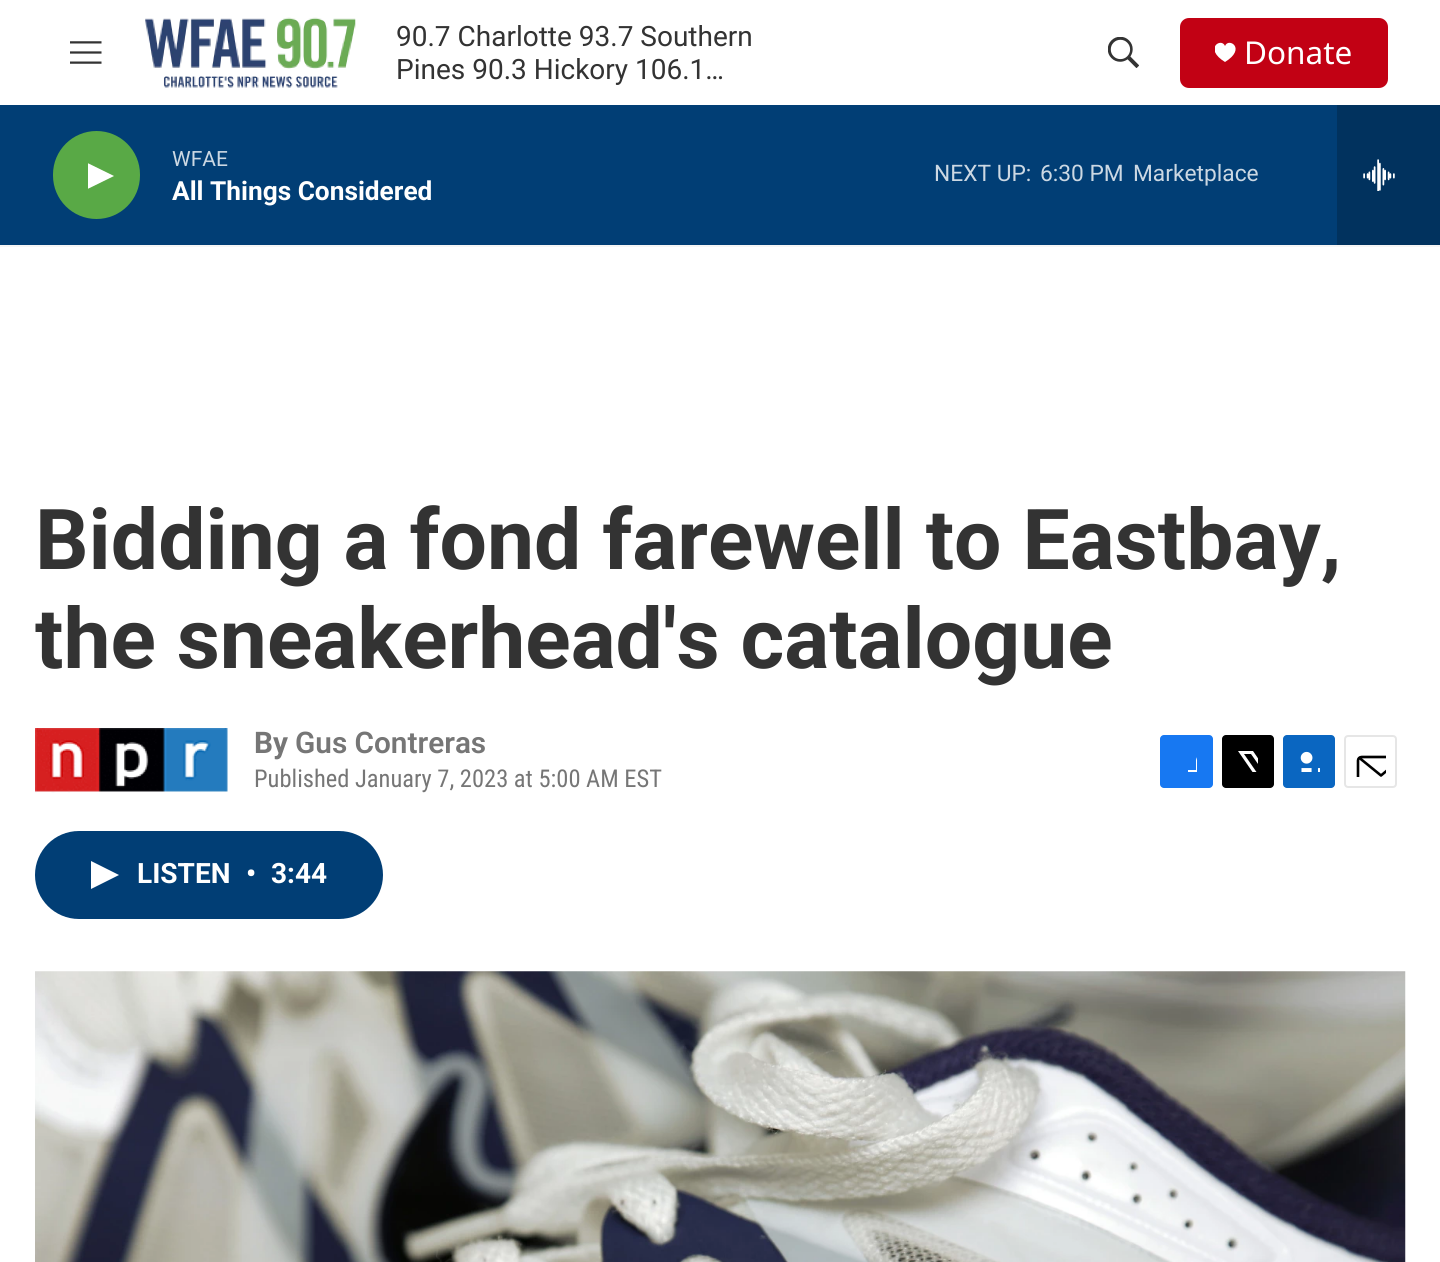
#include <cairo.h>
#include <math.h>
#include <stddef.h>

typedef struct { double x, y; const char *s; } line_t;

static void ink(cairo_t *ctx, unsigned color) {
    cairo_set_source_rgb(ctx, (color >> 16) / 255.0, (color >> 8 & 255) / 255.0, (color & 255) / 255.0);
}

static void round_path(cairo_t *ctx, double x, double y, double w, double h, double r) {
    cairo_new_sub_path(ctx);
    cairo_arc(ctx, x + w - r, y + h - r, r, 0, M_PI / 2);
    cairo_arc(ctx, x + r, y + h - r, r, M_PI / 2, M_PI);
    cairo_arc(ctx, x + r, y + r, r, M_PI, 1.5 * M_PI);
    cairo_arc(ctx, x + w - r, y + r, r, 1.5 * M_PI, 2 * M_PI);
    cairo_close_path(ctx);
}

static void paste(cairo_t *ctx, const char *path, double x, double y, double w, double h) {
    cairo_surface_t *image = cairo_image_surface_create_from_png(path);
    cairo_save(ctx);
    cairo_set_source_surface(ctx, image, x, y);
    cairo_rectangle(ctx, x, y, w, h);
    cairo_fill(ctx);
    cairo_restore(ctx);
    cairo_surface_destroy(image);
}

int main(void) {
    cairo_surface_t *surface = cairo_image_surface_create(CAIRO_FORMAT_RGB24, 1440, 1262);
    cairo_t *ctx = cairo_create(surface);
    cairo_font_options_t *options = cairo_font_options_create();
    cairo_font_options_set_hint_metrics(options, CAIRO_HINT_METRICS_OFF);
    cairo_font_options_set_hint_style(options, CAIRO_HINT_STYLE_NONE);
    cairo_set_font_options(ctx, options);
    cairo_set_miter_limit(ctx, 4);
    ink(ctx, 0xFFFFFF);
    cairo_paint(ctx);
    ink(ctx, 0xF5F5F5);
    cairo_rectangle(ctx, 0, 245, 1440, 2);
    cairo_fill(ctx);
    paste(ctx, "media/1.png", 70, 41, 32, 23);
    paste(ctx, "media/2.png", 145, 17, 211, 71);
    cairo_select_font_face(ctx, "Roboto", CAIRO_FONT_SLANT_NORMAL, CAIRO_FONT_WEIGHT_NORMAL);
    cairo_set_font_size(ctx, 28);
    ink(ctx, 0x333333);
    cairo_move_to(ctx, 396, 46);
    cairo_show_text(ctx, "90.7 Charlotte 93.7 Southern");
    cairo_move_to(ctx, 396, 79);
    cairo_show_text(ctx, "Pines 90.3 Hickory 106.1…");
    paste(ctx, "media/3.png", 1108, 37, 31, 31);
    ink(ctx, 0xC20114);
    round_path(ctx, 1180, 18, 208, 70, 9);
    cairo_fill(ctx);
    cairo_save(ctx);
    cairo_rectangle(ctx, 1215, 42, 21, 21);
    cairo_clip(ctx);
    ink(ctx, 0xFFFFFF);
    cairo_new_path(ctx);
    cairo_move_to(ctx, 1225, 46);
    cairo_curve_to(ctx, 1221.5, 37, 1203, 48.5, 1225, 62);
    cairo_curve_to(ctx, 1247, 48.5, 1228.5, 37, 1225, 46);
    cairo_close_path(ctx);
    cairo_fill(ctx);
    cairo_restore(ctx);
    cairo_select_font_face(ctx, "Noto Sans", CAIRO_FONT_SLANT_NORMAL, CAIRO_FONT_WEIGHT_NORMAL);
    cairo_set_font_size(ctx, 31.5);
    ink(ctx, 0xFFFFFF);
    cairo_move_to(ctx, 1244, 64);
    cairo_show_text(ctx, "Donate");
    ink(ctx, 0x013E75);
    cairo_rectangle(ctx, 0, 105, 1337, 140);
    cairo_fill(ctx);
    ink(ctx, 0x59A946);
    round_path(ctx, 53, 131, 87, 88, 43.5);
    cairo_fill(ctx);
    cairo_save(ctx);
    cairo_rectangle(ctx, 88, 159, 26, 34);
    cairo_clip(ctx);
    ink(ctx, 0xFFFFFF);
    cairo_new_path(ctx);
    cairo_move_to(ctx, 87.5, 163);
    cairo_line_to(ctx, 114, 176);
    cairo_line_to(ctx, 87.5, 189);
    cairo_close_path(ctx);
    cairo_fill(ctx);
    cairo_restore(ctx);
    cairo_select_font_face(ctx, "Roboto", CAIRO_FONT_SLANT_NORMAL, CAIRO_FONT_WEIGHT_NORMAL);
    cairo_set_font_size(ctx, 21);
    ink(ctx, 0xCCD8E3);
    cairo_move_to(ctx, 172, 166);
    cairo_show_text(ctx, "WFAE");
    cairo_select_font_face(ctx, "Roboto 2", CAIRO_FONT_SLANT_NORMAL, CAIRO_FONT_WEIGHT_BOLD);
    cairo_set_font_size(ctx, 26.25);
    ink(ctx, 0xFFFFFF);
    cairo_move_to(ctx, 172, 200);
    cairo_show_text(ctx, "All Things Considered");
    cairo_select_font_face(ctx, "Roboto", CAIRO_FONT_SLANT_NORMAL, CAIRO_FONT_WEIGHT_NORMAL);
    cairo_set_font_size(ctx, 22.75);
    ink(ctx, 0xCCD8E3);
    {
        static const line_t items[] = {
            {934, 181, "NEXT UP:"},
            {1040, 181, "6:30 PM"},
            {1133, 181, "Marketplace"},
        };
        for (size_t i = 0; i < sizeof items / sizeof *items; i++) {
            cairo_move_to(ctx, items[i].x, items[i].y);
            cairo_show_text(ctx, items[i].s);
        }
    }
    ink(ctx, 0x01325E);
    cairo_rectangle(ctx, 1337, 105, 103, 140);
    cairo_fill(ctx);
    paste(ctx, "media/4.png", 1363, 159, 32, 32);
    cairo_select_font_face(ctx, "Roboto", CAIRO_FONT_SLANT_NORMAL, CAIRO_FONT_WEIGHT_BOLD);
    cairo_set_font_size(ctx, 84);
    ink(ctx, 0x333333);
    cairo_move_to(ctx, 35, 569);
    cairo_show_text(ctx, "Bidding a fond farewell to Eastbay,");
    cairo_move_to(ctx, 35, 668);
    cairo_show_text(ctx, "the sneakerhead's catalogue");
    paste(ctx, "media/5.png", 35, 728, 193, 65);
    cairo_set_font_size(ctx, 29.75);
    ink(ctx, 0x767676);
    cairo_move_to(ctx, 254, 753);
    cairo_show_text(ctx, "By");
    cairo_select_font_face(ctx, "Roboto SemiBold", CAIRO_FONT_SLANT_NORMAL, CAIRO_FONT_WEIGHT_NORMAL);
    cairo_move_to(ctx, 295, 753);
    cairo_show_text(ctx, "Gus Contreras");
    cairo_select_font_face(ctx, "Roboto Condensed", CAIRO_FONT_SLANT_NORMAL, CAIRO_FONT_WEIGHT_NORMAL);
    cairo_set_font_size(ctx, 24.5);
    cairo_move_to(ctx, 254, 787);
    cairo_show_text(ctx, "Published January 7, 2023 at 5:00 AM EST");
    ink(ctx, 0x1778F2);
    round_path(ctx, 1160, 735, 53, 53, 4);
    cairo_fill(ctx);
    cairo_save(ctx);
    cairo_rectangle(ctx, 1176, 751, 21, 21);
    cairo_clip(ctx);
    ink(ctx, 0xFFFFFF);
    cairo_new_path(ctx);
    cairo_move_to(ctx, 1205, 788);
    cairo_line_to(ctx, 1196, 788);
    cairo_line_to(ctx, 1196, 779);
    cairo_line_to(ctx, 1188, 779);
    cairo_line_to(ctx, 1188, 770);
    cairo_line_to(ctx, 1196, 770);
    cairo_line_to(ctx, 1196, 760);
    cairo_curve_to(ctx, 1198, 751.5, 1206, 751, 1213, 752);
    cairo_line_to(ctx, 1213, 760);
    cairo_curve_to(ctx, 1203.5, 760, 1205, 761.5, 1205, 770);
    cairo_line_to(ctx, 1213, 770);
    cairo_line_to(ctx, 1212, 779);
    cairo_line_to(ctx, 1205, 779);
    cairo_close_path(ctx);
    cairo_fill(ctx);
    cairo_restore(ctx);
    ink(ctx, 0x000000);
    round_path(ctx, 1222, 735, 52, 53, 4);
    cairo_fill(ctx);
    cairo_save(ctx);
    cairo_rectangle(ctx, 1237, 751, 21, 21);
    cairo_clip(ctx);
    ink(ctx, 0xFFFFFF);
    cairo_new_path(ctx);
    cairo_move_to(ctx, 1268, 773);
    cairo_line_to(ctx, 1274, 781.5);
    cairo_curve_to(ctx, 1274, 783, 1274, 785, 1273.5, 786);
    cairo_line_to(ctx, 1251, 754);
    cairo_line_to(ctx, 1244, 754);
    cairo_line_to(ctx, 1267.5, 788);
    cairo_line_to(ctx, 1263.5, 788);
    cairo_line_to(ctx, 1260, 783);
    cairo_line_to(ctx, 1255.5, 788);
    cairo_line_to(ctx, 1251, 788);
    cairo_line_to(ctx, 1258, 780);
    cairo_line_to(ctx, 1238, 751);
    cairo_line_to(ctx, 1253, 751);
    cairo_line_to(ctx, 1266, 770);
    cairo_line_to(ctx, 1274, 761);
    cairo_line_to(ctx, 1274, 766);
    cairo_close_path(ctx);
    cairo_fill(ctx);
    cairo_restore(ctx);
    ink(ctx, 0x0A66C1);
    round_path(ctx, 1283, 735, 52, 53, 4);
    cairo_fill(ctx);
    paste(ctx, "media/6.png", 1300, 751, 20, 21);
    round_path(ctx, 1345, 736, 51, 51, 3);
    ink(ctx, 0xE6E6E6);
    cairo_stroke(ctx);
    cairo_save(ctx);
    cairo_rectangle(ctx, 1355, 746, 31, 31);
    cairo_clip(ctx);
    cairo_new_path(ctx);
    cairo_move_to(ctx, 1403.5, 784);
    cairo_curve_to(ctx, 1403.5, 785.5, 1402, 787, 1400, 787);
    cairo_line_to(ctx, 1361.5, 787);
    cairo_curve_to(ctx, 1359.5, 787, 1358, 785.5, 1358, 784);
    cairo_line_to(ctx, 1358, 760.5);
    cairo_curve_to(ctx, 1358, 758.5, 1359.5, 757, 1361.5, 757);
    cairo_line_to(ctx, 1400, 757);
    cairo_curve_to(ctx, 1402, 757, 1403.5, 758.5, 1403.5, 760.5);
    cairo_close_path(ctx);
    cairo_move_to(ctx, 1402, 758);
    cairo_line_to(ctx, 1381, 775.5);
    cairo_line_to(ctx, 1359.5, 758);
    ink(ctx, 0x000000);
    cairo_set_line_width(ctx, 2.6);
    cairo_set_line_cap(ctx, CAIRO_LINE_CAP_ROUND);
    cairo_set_line_join(ctx, CAIRO_LINE_JOIN_ROUND);
    cairo_stroke(ctx);
    cairo_restore(ctx);
    ink(ctx, 0x013E75);
    round_path(ctx, 35, 831, 348, 88, 44);
    cairo_fill(ctx);
    ink(ctx, 0xFFFFFF);
    cairo_new_path(ctx);
    cairo_move_to(ctx, 91, 861);
    cairo_line_to(ctx, 119, 875);
    cairo_line_to(ctx, 91, 889);
    cairo_close_path(ctx);
    cairo_fill(ctx);
    cairo_select_font_face(ctx, "Roboto 2", CAIRO_FONT_SLANT_NORMAL, CAIRO_FONT_WEIGHT_BOLD);
    cairo_set_font_size(ctx, 28);
    {
        static const line_t items[] = {
            {137, 883, "LISTEN"},
            {246, 883, "•"},
            {271, 883, "3:44"},
        };
        for (size_t i = 0; i < sizeof items / sizeof *items; i++) {
            cairo_move_to(ctx, items[i].x, items[i].y);
            cairo_show_text(ctx, items[i].s);
        }
    }
    paste(ctx, "media/7.png", 35, 971, 1371, 291);
    cairo_surface_write_to_png(surface, "image.png");
    cairo_font_options_destroy(options);
    cairo_destroy(ctx);
    cairo_surface_destroy(surface);
    return 0;
}
